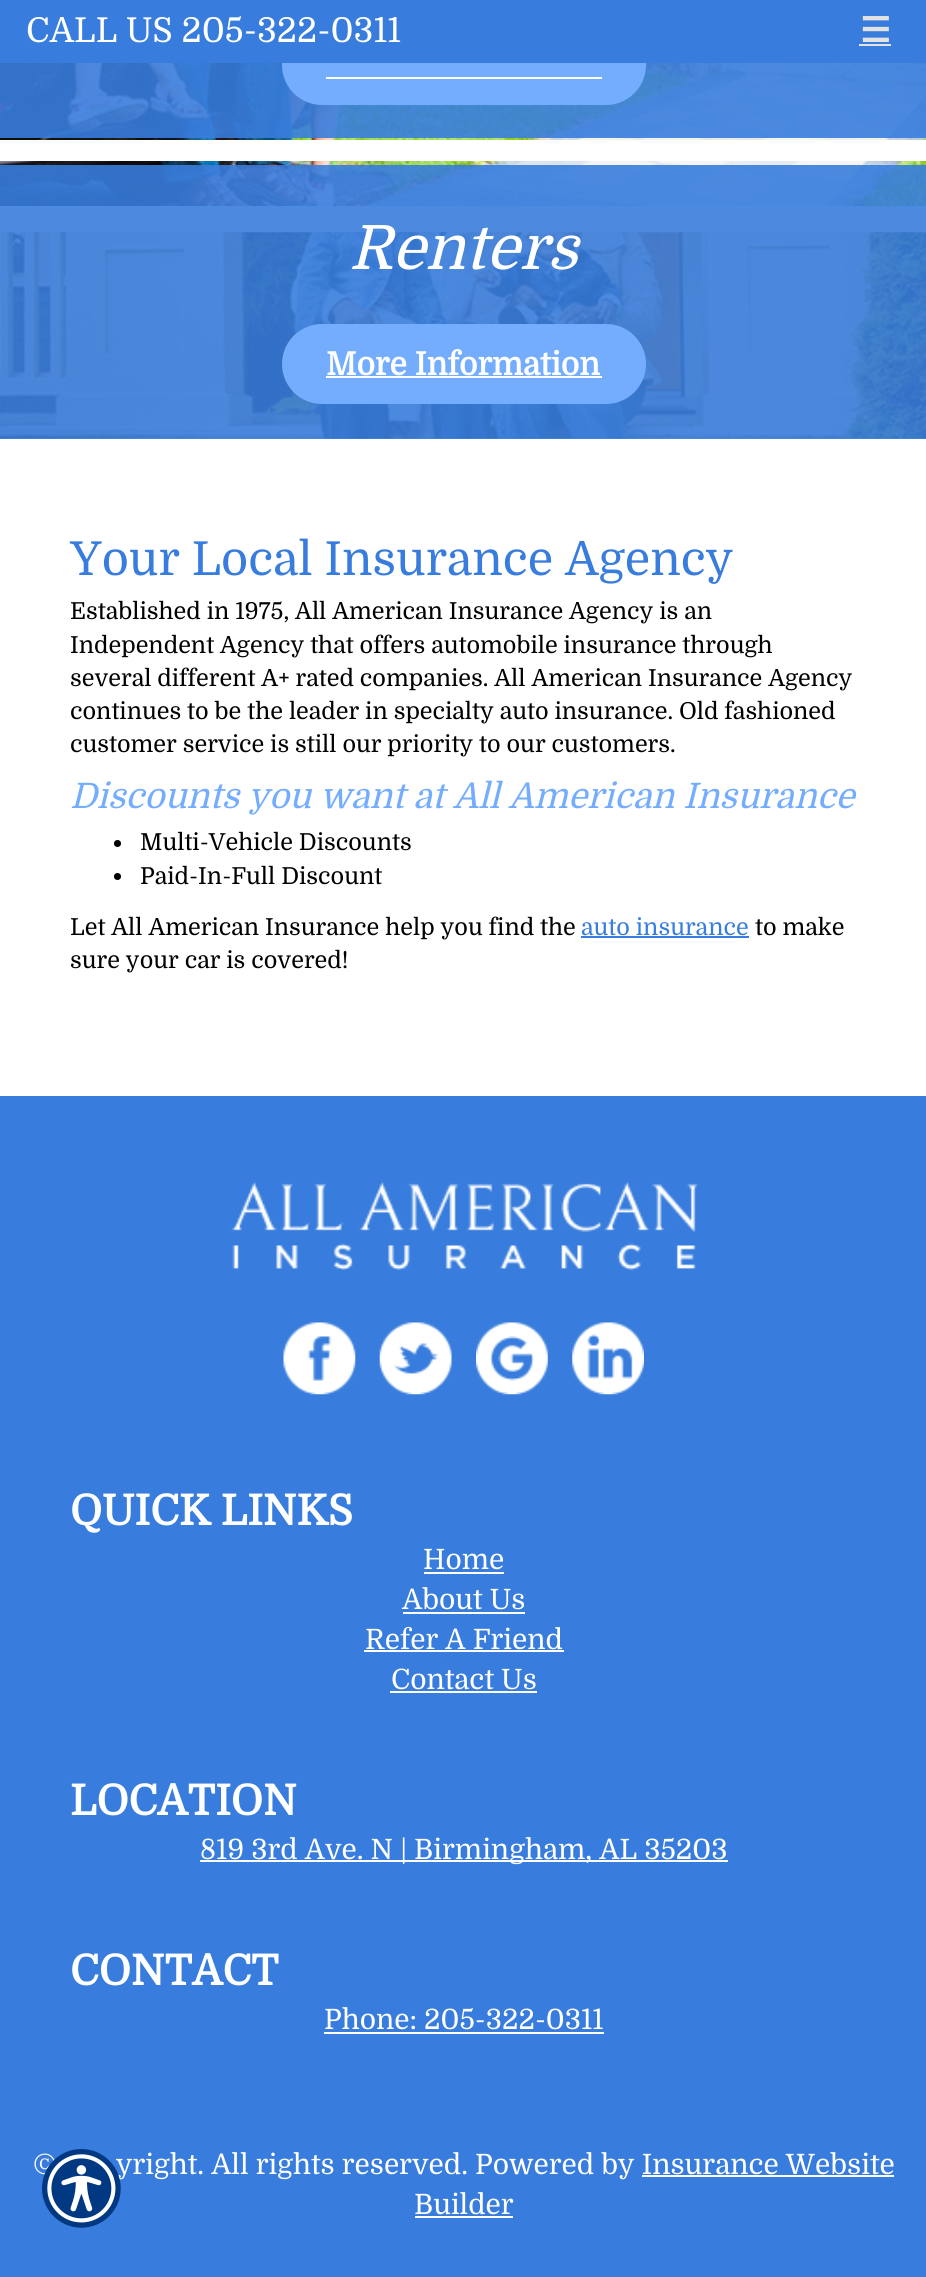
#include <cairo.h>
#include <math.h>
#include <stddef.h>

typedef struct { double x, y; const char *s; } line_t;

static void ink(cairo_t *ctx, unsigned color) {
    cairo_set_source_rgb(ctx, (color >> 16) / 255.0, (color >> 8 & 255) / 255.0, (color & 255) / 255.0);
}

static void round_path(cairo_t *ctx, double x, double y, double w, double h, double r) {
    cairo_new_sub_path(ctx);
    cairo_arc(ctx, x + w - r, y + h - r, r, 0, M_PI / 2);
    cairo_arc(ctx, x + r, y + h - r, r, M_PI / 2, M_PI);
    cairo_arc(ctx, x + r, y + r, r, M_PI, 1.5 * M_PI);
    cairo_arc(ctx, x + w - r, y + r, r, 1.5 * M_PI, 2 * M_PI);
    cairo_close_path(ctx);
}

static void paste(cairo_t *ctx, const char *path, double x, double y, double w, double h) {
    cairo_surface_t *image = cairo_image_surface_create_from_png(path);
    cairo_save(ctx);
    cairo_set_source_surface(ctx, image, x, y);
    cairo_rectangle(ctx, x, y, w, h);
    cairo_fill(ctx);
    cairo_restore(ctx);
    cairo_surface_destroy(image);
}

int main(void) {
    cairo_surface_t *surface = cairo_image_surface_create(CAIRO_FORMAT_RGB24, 926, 2277);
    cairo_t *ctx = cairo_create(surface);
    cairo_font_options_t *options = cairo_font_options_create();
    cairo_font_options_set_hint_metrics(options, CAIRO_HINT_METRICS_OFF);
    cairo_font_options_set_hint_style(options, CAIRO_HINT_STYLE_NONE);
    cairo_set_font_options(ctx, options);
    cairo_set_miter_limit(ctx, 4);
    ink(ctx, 0xFFFFFF);
    cairo_paint(ctx);
    ink(ctx, 0x4C8AE0);
    cairo_rectangle(ctx, 0, 206, 926, 233);
    cairo_fill(ctx);
    paste(ctx, "media/1.png", 0, 63, 926, 77);
    ink(ctx, 0x74ADFE);
    round_path(ctx, 282, 25, 364, 80, 40);
    cairo_fill(ctx);
    ink(ctx, 0x387DDD);
    cairo_rectangle(ctx, 0, 0, 926, 63);
    cairo_fill(ctx);
    cairo_select_font_face(ctx, "Domine", CAIRO_FONT_SLANT_NORMAL, CAIRO_FONT_WEIGHT_NORMAL);
    cairo_set_font_size(ctx, 34.25);
    ink(ctx, 0xFFFFFF);
    cairo_move_to(ctx, 26, 42);
    cairo_show_text(ctx, "CALL US 205-322-0311");
    cairo_select_font_face(ctx, "DejaVu Sans", CAIRO_FONT_SLANT_NORMAL, CAIRO_FONT_WEIGHT_BOLD);
    ink(ctx, 0xE2E2E2);
    cairo_move_to(ctx, 860, 42);
    cairo_show_text(ctx, "☰");
    cairo_rectangle(ctx, 859, 44, 32, 2);
    cairo_fill(ctx);
    ink(ctx, 0xFFFFFF);
    cairo_rectangle(ctx, 326, 77, 276, 2);
    cairo_fill(ctx);
    paste(ctx, "media/2.png", 0, 161, 926, 278);
    cairo_select_font_face(ctx, "Domine", CAIRO_FONT_SLANT_ITALIC, CAIRO_FONT_WEIGHT_NORMAL);
    cairo_set_font_size(ctx, 61);
    cairo_move_to(ctx, 349, 269);
    cairo_show_text(ctx, "Renters");
    ink(ctx, 0x74ADFE);
    round_path(ctx, 282, 324, 364, 80, 40);
    cairo_fill(ctx);
    cairo_select_font_face(ctx, "Domine", CAIRO_FONT_SLANT_NORMAL, CAIRO_FONT_WEIGHT_BOLD);
    cairo_set_font_size(ctx, 31.75);
    ink(ctx, 0xFFFFFF);
    cairo_move_to(ctx, 326, 375);
    cairo_show_text(ctx, "More Information");
    cairo_rectangle(ctx, 326, 376, 276, 2);
    cairo_fill(ctx);
    cairo_select_font_face(ctx, "Domine", CAIRO_FONT_SLANT_NORMAL, CAIRO_FONT_WEIGHT_NORMAL);
    cairo_set_font_size(ctx, 46.7);
    ink(ctx, 0x387DDD);
    cairo_move_to(ctx, 70, 575);
    cairo_show_text(ctx, "Your Local Insurance Agency");
    cairo_set_font_size(ctx, 23.35);
    ink(ctx, 0x000000);
    {
        static const line_t items[] = {
            {70, 619, "Established in 1975, All American Insurance Agency is an"},
            {70, 653, "Independent Agency that offers automobile insurance through"},
            {70, 686, "several different A+ rated companies. All American Insurance Agency"},
            {70, 719, "continues to be the leader in specialty auto insurance. Old fashioned"},
            {70, 752, "customer service is still our priority to our customers."},
        };
        for (size_t i = 0; i < sizeof items / sizeof *items; i++) {
            cairo_move_to(ctx, items[i].x, items[i].y);
            cairo_show_text(ctx, items[i].s);
        }
    }
    cairo_select_font_face(ctx, "Domine", CAIRO_FONT_SLANT_ITALIC, CAIRO_FONT_WEIGHT_NORMAL);
    cairo_set_font_size(ctx, 35);
    ink(ctx, 0x74ADFE);
    cairo_move_to(ctx, 70, 808);
    cairo_show_text(ctx, "Discounts you want at All American Insurance");
    ink(ctx, 0x000000);
    cairo_new_path(ctx);
    cairo_arc(ctx, 117.5, 843.5, 3.5, 0, 2 * M_PI);
    cairo_fill(ctx);
    cairo_select_font_face(ctx, "Domine", CAIRO_FONT_SLANT_NORMAL, CAIRO_FONT_WEIGHT_NORMAL);
    cairo_set_font_size(ctx, 23.35);
    cairo_move_to(ctx, 140, 850);
    cairo_show_text(ctx, "Multi-Vehicle Discounts");
    cairo_new_path(ctx);
    cairo_arc(ctx, 117.5, 876.5, 3.5, 0, 2 * M_PI);
    cairo_fill(ctx);
    cairo_move_to(ctx, 140, 884);
    cairo_show_text(ctx, "Paid-In-Full Discount");
    cairo_move_to(ctx, 70, 935);
    cairo_show_text(ctx, "Let All American Insurance help you find the");
    ink(ctx, 0x387DDD);
    cairo_move_to(ctx, 581, 935);
    cairo_show_text(ctx, "auto insurance");
    cairo_rectangle(ctx, 581, 936, 168, 2);
    cairo_fill(ctx);
    ink(ctx, 0x000000);
    cairo_move_to(ctx, 755, 935);
    cairo_show_text(ctx, "to make");
    cairo_move_to(ctx, 70, 968);
    cairo_show_text(ctx, "sure your car is covered!");
    ink(ctx, 0x387DDD);
    cairo_rectangle(ctx, 0, 1096, 926, 1181);
    cairo_fill(ctx);
    paste(ctx, "media/3.png", 231, 1182, 467, 88);
    paste(ctx, "media/4.png", 283, 1322, 73, 73);
    paste(ctx, "media/5.png", 379, 1322, 73, 73);
    paste(ctx, "media/6.png", 476, 1322, 72, 73);
    paste(ctx, "media/7.png", 572, 1322, 72, 73);
    cairo_select_font_face(ctx, "Domine", CAIRO_FONT_SLANT_NORMAL, CAIRO_FONT_WEIGHT_BOLD);
    cairo_set_font_size(ctx, 42);
    ink(ctx, 0xFFFFFF);
    cairo_move_to(ctx, 70, 1525);
    cairo_show_text(ctx, "QUICK LINKS");
    cairo_select_font_face(ctx, "Domine", CAIRO_FONT_SLANT_NORMAL, CAIRO_FONT_WEIGHT_NORMAL);
    cairo_set_font_size(ctx, 28);
    cairo_move_to(ctx, 423, 1569);
    cairo_show_text(ctx, "Home");
    cairo_rectangle(ctx, 424, 1572, 80, 2);
    cairo_fill(ctx);
    cairo_move_to(ctx, 402, 1609);
    cairo_show_text(ctx, "About Us");
    cairo_rectangle(ctx, 403, 1612, 122, 2);
    cairo_fill(ctx);
    cairo_move_to(ctx, 365, 1649);
    cairo_show_text(ctx, "Refer A Friend");
    cairo_rectangle(ctx, 364, 1650, 200, 2);
    cairo_fill(ctx);
    cairo_move_to(ctx, 391, 1689);
    cairo_show_text(ctx, "Contact Us");
    cairo_rectangle(ctx, 390, 1691, 147, 2);
    cairo_fill(ctx);
    cairo_select_font_face(ctx, "Domine", CAIRO_FONT_SLANT_NORMAL, CAIRO_FONT_WEIGHT_BOLD);
    cairo_set_font_size(ctx, 42);
    cairo_move_to(ctx, 70, 1815);
    cairo_show_text(ctx, "LOCATION");
    cairo_rectangle(ctx, 200, 1860, 528, 2);
    cairo_fill(ctx);
    cairo_select_font_face(ctx, "Domine", CAIRO_FONT_SLANT_NORMAL, CAIRO_FONT_WEIGHT_NORMAL);
    cairo_set_font_size(ctx, 28);
    cairo_move_to(ctx, 200, 1859);
    cairo_show_text(ctx, "819 3rd Ave. N | Birmingham, AL 35203");
    cairo_select_font_face(ctx, "Domine", CAIRO_FONT_SLANT_NORMAL, CAIRO_FONT_WEIGHT_BOLD);
    cairo_set_font_size(ctx, 42);
    cairo_move_to(ctx, 70, 1985);
    cairo_show_text(ctx, "CONTACT");
    cairo_select_font_face(ctx, "Domine", CAIRO_FONT_SLANT_NORMAL, CAIRO_FONT_WEIGHT_NORMAL);
    cairo_set_font_size(ctx, 28);
    cairo_move_to(ctx, 324, 2029);
    cairo_show_text(ctx, "Phone: 205-322-0311");
    cairo_rectangle(ctx, 324, 2032, 280, 2);
    cairo_fill(ctx);
    {
        static const line_t items[] = {
            {33, 2174, "©"},
            {116, 2174, "yright. All rights reserved. Powered by Insurance Website"},
            {414, 2214, "Builder"},
        };
        for (size_t i = 0; i < sizeof items / sizeof *items; i++) {
            cairo_move_to(ctx, items[i].x, items[i].y);
            cairo_show_text(ctx, items[i].s);
        }
    }
    cairo_rectangle(ctx, 642, 2175, 252, 2);
    cairo_fill(ctx);
    cairo_rectangle(ctx, 415, 2216, 98, 2);
    cairo_fill(ctx);
    paste(ctx, "media/8.png", 42, 2149, 79, 79);
    cairo_surface_write_to_png(surface, "image.png");
    cairo_font_options_destroy(options);
    cairo_destroy(ctx);
    cairo_surface_destroy(surface);
    return 0;
}
